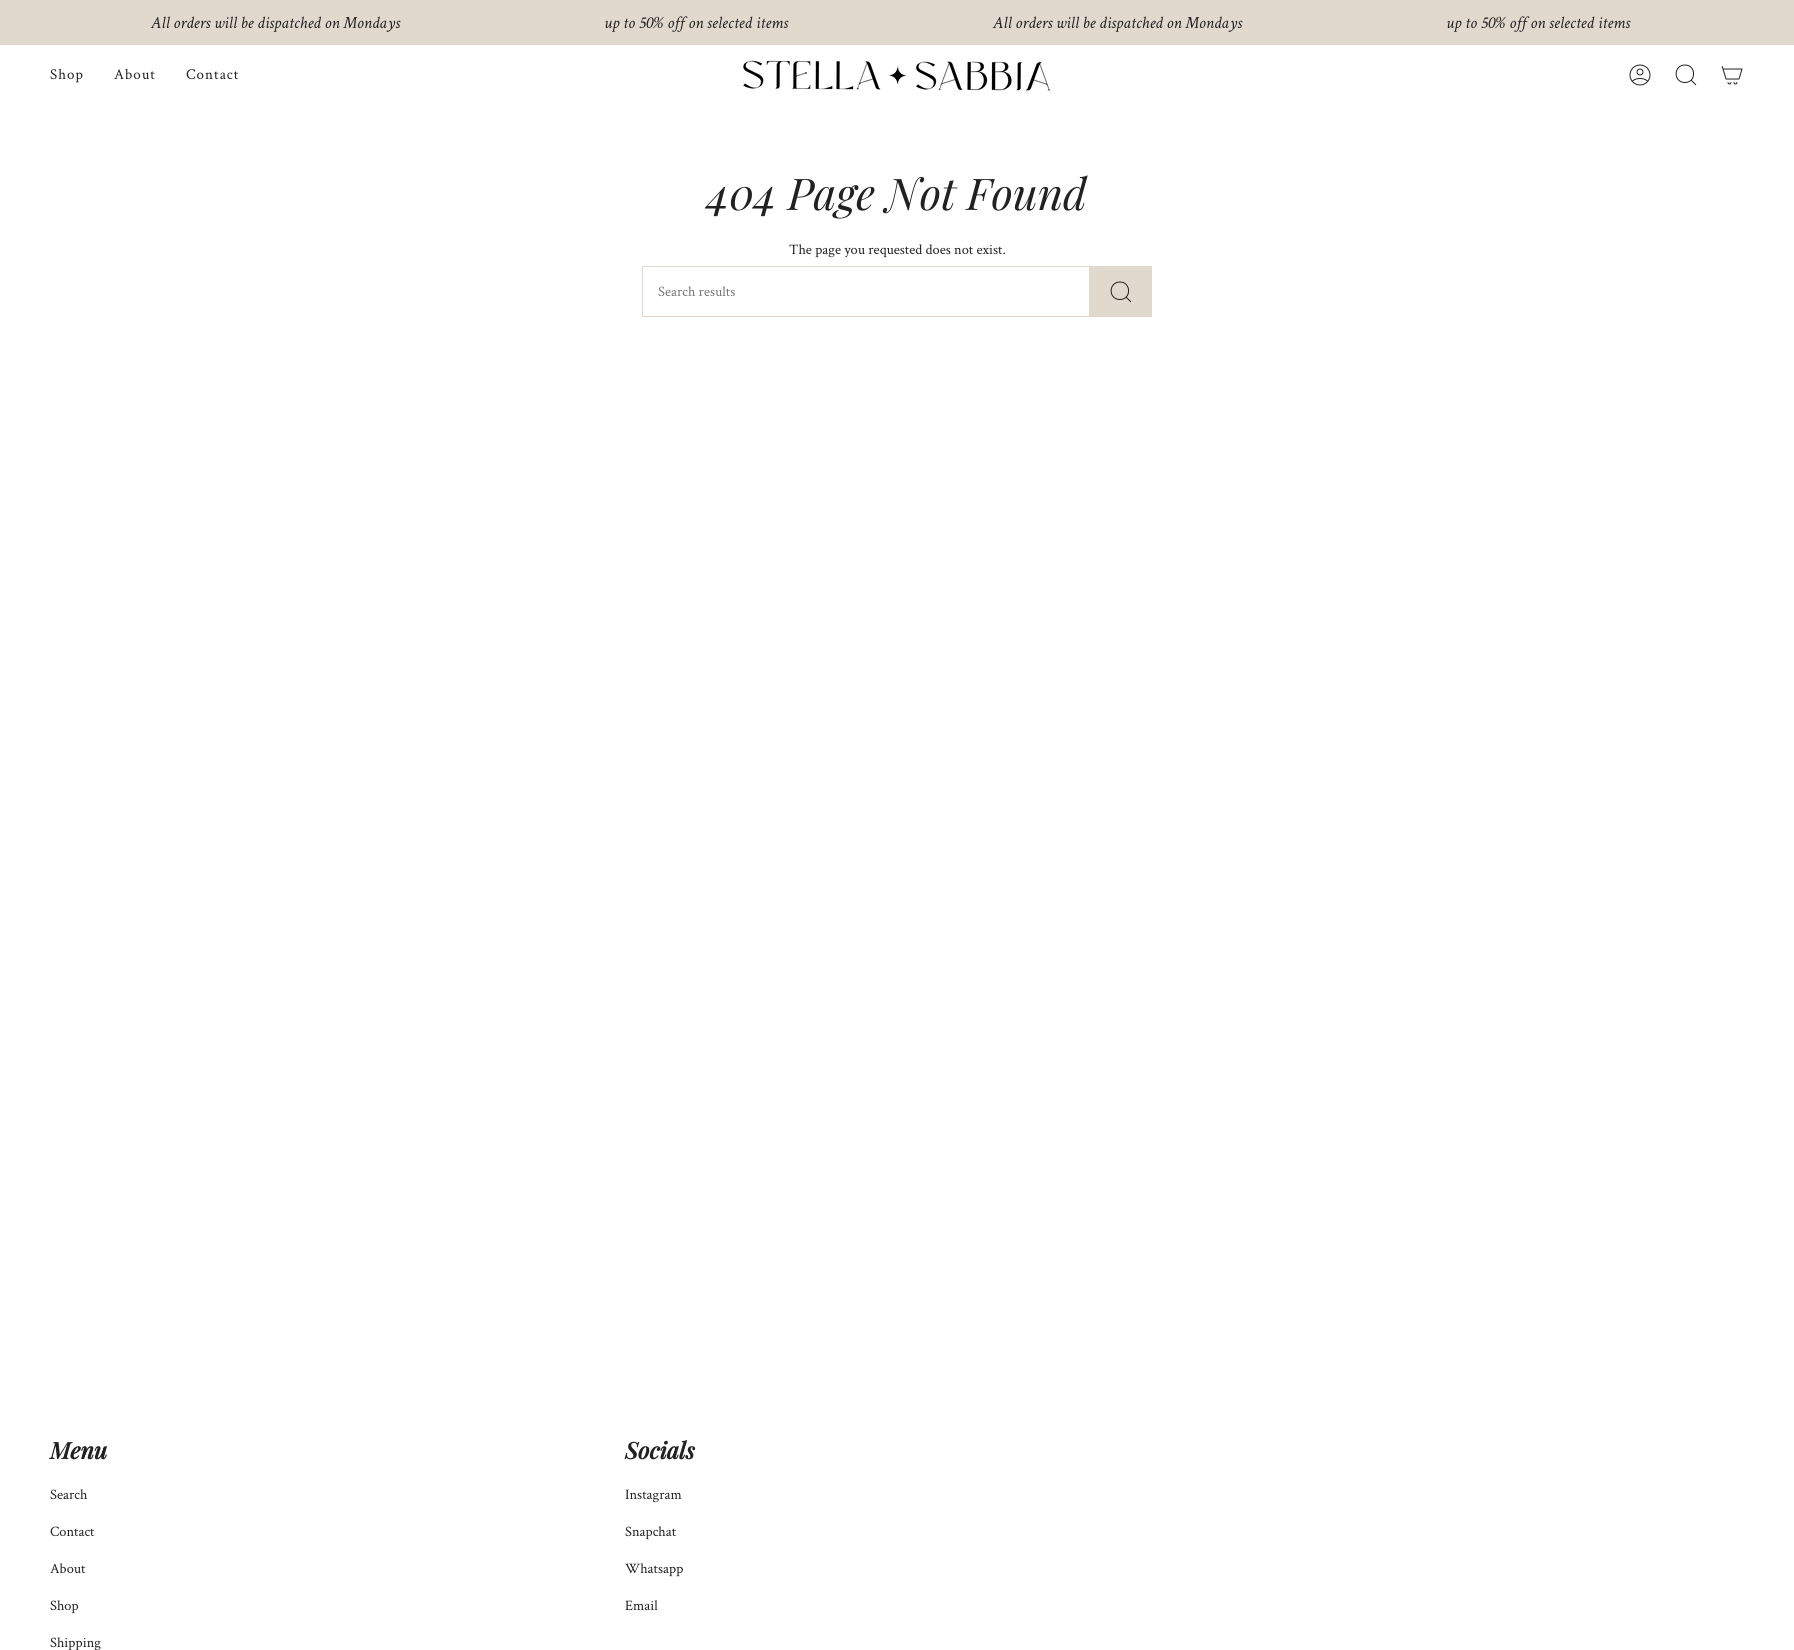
#include <cairo.h>
#include <math.h>
#include <stddef.h>

typedef struct { double x, y; const char *s; } line_t;

static void ink(cairo_t *ctx, unsigned color) {
    cairo_set_source_rgb(ctx, (color >> 16) / 255.0, (color >> 8 & 255) / 255.0, (color & 255) / 255.0);
}

static void write_spaced(cairo_t *ctx, double x, double y, const char *s, double letter, double word) {
    cairo_move_to(ctx, x, y);
    while (*s) {
        char ch[5] = {0};
        int n = 0;
        do ch[n++] = *s++; while ((*s & 0xC0) == 0x80);
        cairo_show_text(ctx, ch);
        cairo_rel_move_to(ctx, letter + word * (*ch == ' '), 0);
    }
}

static void paste(cairo_t *ctx, const char *path, double x, double y, double w, double h) {
    cairo_surface_t *image = cairo_image_surface_create_from_png(path);
    cairo_save(ctx);
    cairo_set_source_surface(ctx, image, x, y);
    cairo_rectangle(ctx, x, y, w, h);
    cairo_fill(ctx);
    cairo_restore(ctx);
    cairo_surface_destroy(image);
}

int main(void) {
    cairo_surface_t *surface = cairo_image_surface_create(CAIRO_FORMAT_RGB24, 1794, 1650);
    cairo_t *ctx = cairo_create(surface);
    cairo_font_options_t *options = cairo_font_options_create();
    cairo_font_options_set_hint_metrics(options, CAIRO_HINT_METRICS_OFF);
    cairo_font_options_set_hint_style(options, CAIRO_HINT_STYLE_NONE);
    cairo_set_font_options(ctx, options);
    cairo_set_miter_limit(ctx, 4);
    ink(ctx, 0xFFFFFF);
    cairo_paint(ctx);
    ink(ctx, 0xE1D8CE);
    cairo_rectangle(ctx, 0, 0, 1794, 45);
    cairo_fill(ctx);
    cairo_select_font_face(ctx, "Crimson Text", CAIRO_FONT_SLANT_ITALIC, CAIRO_FONT_WEIGHT_NORMAL);
    cairo_set_font_size(ctx, 17.1);
    ink(ctx, 0x212121);
    {
        static const line_t items[] = {
            {151, 28, "All orders will be dispatched on Mondays"},
            {604, 28, "up to 50% off on selected items"},
            {993, 28, "All orders will be dispatched on Mondays"},
            {1446, 28, "up to 50% off on selected items"},
        };
        for (size_t i = 0; i < sizeof items / sizeof *items; i++) {
            cairo_move_to(ctx, items[i].x, items[i].y);
            cairo_show_text(ctx, items[i].s);
        }
    }
    cairo_select_font_face(ctx, "Crimson Text", CAIRO_FONT_SLANT_NORMAL, CAIRO_FONT_WEIGHT_NORMAL);
    cairo_set_font_size(ctx, 15);
    {
        static const line_t items[] = {
            {50, 79, "Shop"},
            {114, 79, "About"},
            {186, 79, "Contact"},
        };
        for (size_t i = 0; i < sizeof items / sizeof *items; i++) {
            write_spaced(ctx, items[i].x, items[i].y, items[i].s, 1, 0);
        }
    }
    paste(ctx, "media/1.png", 743, 60, 308, 31);
    paste(ctx, "media/2.png", 1629, 64, 22, 22);
    cairo_new_path(ctx);
    cairo_move_to(ctx, 1685, 65);
    cairo_curve_to(ctx, 1696.5, 65, 1696.5, 83, 1684.5, 82.5);
    cairo_curve_to(ctx, 1673, 82, 1673.5, 65, 1685, 65);
    cairo_close_path(ctx);
    cairo_move_to(ctx, 1691, 80);
    cairo_line_to(ctx, 1696, 85);
    cairo_set_line_width(ctx, 1);
    cairo_stroke(ctx);
    paste(ctx, "media/3.png", 1721, 66, 22, 19);
    cairo_select_font_face(ctx, "Playfair Display", CAIRO_FONT_SLANT_ITALIC, CAIRO_FONT_WEIGHT_NORMAL);
    cairo_set_font_size(ctx, 43.75);
    cairo_move_to(ctx, 707, 210);
    cairo_show_text(ctx, "404 Page Not Found");
    cairo_select_font_face(ctx, "Crimson Text", CAIRO_FONT_SLANT_NORMAL, CAIRO_FONT_WEIGHT_NORMAL);
    cairo_set_font_size(ctx, 14.4);
    cairo_move_to(ctx, 789, 254);
    cairo_show_text(ctx, "The page you requested does not exist.");
    cairo_rectangle(ctx, 642.5, 266.5, 447, 50);
    ink(ctx, 0xE1D8CE);
    cairo_stroke(ctx);
    ink(ctx, 0x757575);
    cairo_move_to(ctx, 658, 296);
    cairo_show_text(ctx, "Search results");
    ink(ctx, 0xE1D8CE);
    cairo_rectangle(ctx, 1090, 266, 62, 51);
    cairo_fill(ctx);
    cairo_new_path(ctx);
    cairo_move_to(ctx, 1120, 282);
    cairo_curve_to(ctx, 1131.5, 282, 1131.5, 300, 1119.5, 299.5);
    cairo_curve_to(ctx, 1108, 299, 1108.5, 282, 1120, 282);
    cairo_close_path(ctx);
    cairo_move_to(ctx, 1126, 297);
    cairo_line_to(ctx, 1131, 302);
    ink(ctx, 0x212121);
    cairo_stroke(ctx);
    cairo_select_font_face(ctx, "Playfair Display", CAIRO_FONT_SLANT_ITALIC, CAIRO_FONT_WEIGHT_BOLD);
    cairo_set_font_size(ctx, 23);
    cairo_move_to(ctx, 50, 1459);
    cairo_show_text(ctx, "Menu");
    cairo_select_font_face(ctx, "Crimson Text", CAIRO_FONT_SLANT_NORMAL, CAIRO_FONT_WEIGHT_NORMAL);
    cairo_set_font_size(ctx, 14.4);
    {
        static const line_t items[] = {
            {50, 1499, "Search"},
            {50, 1536, "Contact"},
            {50, 1573, "About"},
            {50, 1610, "Shop"},
            {50, 1647, "Shipping"},
        };
        for (size_t i = 0; i < sizeof items / sizeof *items; i++) {
            cairo_move_to(ctx, items[i].x, items[i].y);
            cairo_show_text(ctx, items[i].s);
        }
    }
    cairo_select_font_face(ctx, "Playfair Display", CAIRO_FONT_SLANT_ITALIC, CAIRO_FONT_WEIGHT_BOLD);
    cairo_set_font_size(ctx, 23);
    cairo_move_to(ctx, 625, 1459);
    cairo_show_text(ctx, "Socials");
    cairo_select_font_face(ctx, "Crimson Text", CAIRO_FONT_SLANT_NORMAL, CAIRO_FONT_WEIGHT_NORMAL);
    cairo_set_font_size(ctx, 14.4);
    {
        static const line_t items[] = {
            {625, 1499, "Instagram"},
            {625, 1536, "Snapchat"},
            {625, 1573, "Whatsapp"},
            {625, 1610, "Email"},
        };
        for (size_t i = 0; i < sizeof items / sizeof *items; i++) {
            cairo_move_to(ctx, items[i].x, items[i].y);
            cairo_show_text(ctx, items[i].s);
        }
    }
    cairo_surface_write_to_png(surface, "image.png");
    cairo_font_options_destroy(options);
    cairo_destroy(ctx);
    cairo_surface_destroy(surface);
    return 0;
}
